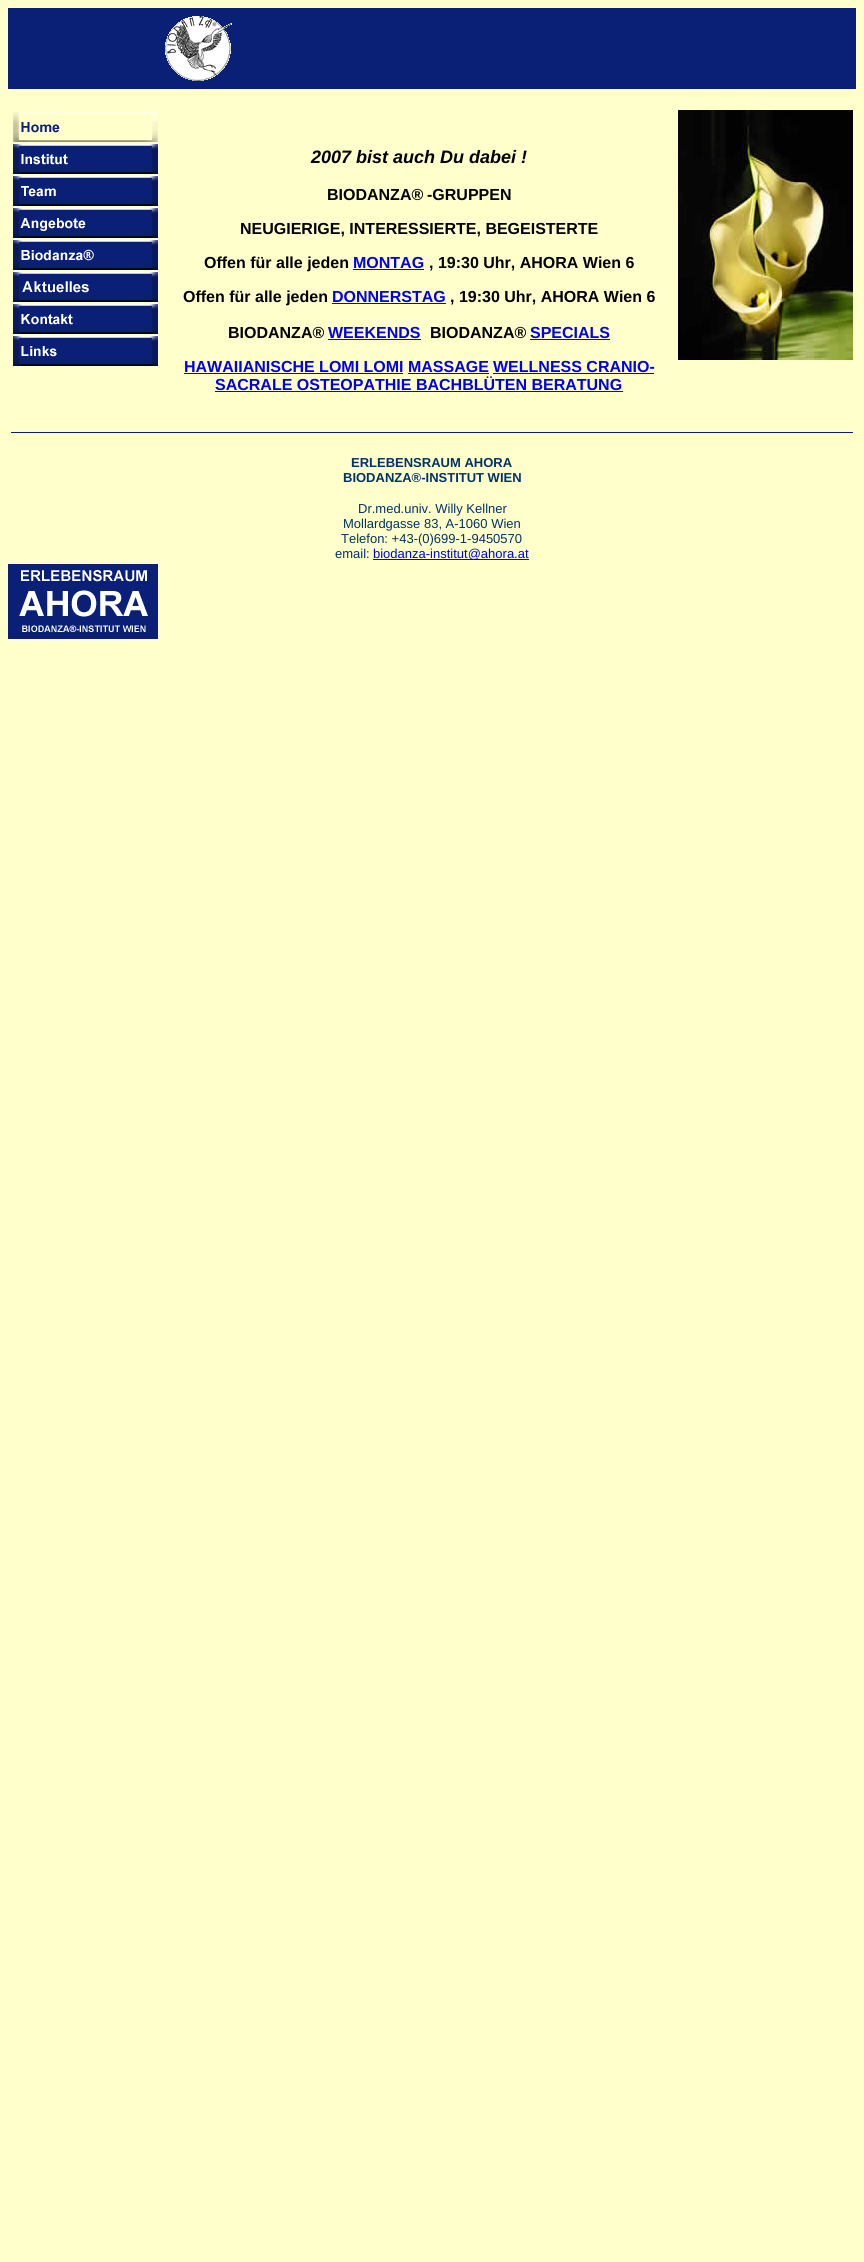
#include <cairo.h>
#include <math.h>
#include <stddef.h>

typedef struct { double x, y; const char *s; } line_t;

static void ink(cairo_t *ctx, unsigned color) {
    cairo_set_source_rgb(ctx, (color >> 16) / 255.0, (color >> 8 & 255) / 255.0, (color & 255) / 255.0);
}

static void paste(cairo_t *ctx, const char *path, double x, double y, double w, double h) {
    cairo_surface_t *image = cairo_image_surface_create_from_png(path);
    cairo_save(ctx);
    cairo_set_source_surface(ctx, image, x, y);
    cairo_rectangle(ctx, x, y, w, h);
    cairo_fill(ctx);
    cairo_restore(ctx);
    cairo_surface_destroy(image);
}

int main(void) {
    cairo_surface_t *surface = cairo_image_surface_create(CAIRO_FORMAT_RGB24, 864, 2262);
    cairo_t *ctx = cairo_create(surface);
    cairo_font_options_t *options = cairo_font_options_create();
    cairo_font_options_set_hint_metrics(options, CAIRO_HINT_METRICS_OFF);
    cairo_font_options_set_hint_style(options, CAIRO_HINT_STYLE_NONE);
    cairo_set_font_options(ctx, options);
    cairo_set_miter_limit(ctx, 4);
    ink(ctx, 0xFFFFCC);
    cairo_paint(ctx);
    ink(ctx, 0x0A1F76);
    cairo_rectangle(ctx, 8, 8, 848, 81);
    cairo_fill(ctx);
    paste(ctx, "media/1.png", 165, 16, 67, 65);
    paste(ctx, "media/2.png", 13, 112, 145, 30);
    paste(ctx, "media/3.png", 13, 144, 145, 30);
    paste(ctx, "media/4.png", 13, 176, 145, 30);
    paste(ctx, "media/5.png", 13, 208, 145, 30);
    paste(ctx, "media/6.png", 13, 240, 145, 30);
    paste(ctx, "media/7.png", 13, 272, 145, 30);
    paste(ctx, "media/8.png", 13, 304, 145, 30);
    paste(ctx, "media/9.png", 13, 336, 145, 30);
    cairo_select_font_face(ctx, "Liberation Sans", CAIRO_FONT_SLANT_ITALIC, CAIRO_FONT_WEIGHT_BOLD);
    cairo_set_font_size(ctx, 18);
    ink(ctx, 0x000000);
    cairo_move_to(ctx, 311, 163);
    cairo_show_text(ctx, "2007 bist auch Du dabei !");
    cairo_select_font_face(ctx, "Liberation Sans", CAIRO_FONT_SLANT_NORMAL, CAIRO_FONT_WEIGHT_BOLD);
    cairo_set_font_size(ctx, 16);
    {
        static const line_t items[] = {
            {327, 200, "BIODANZA®"},
            {427, 200, "-GRUPPEN"},
            {240, 234, "NEUGIERIGE, INTERESSIERTE, BEGEISTERTE"},
            {204, 268, "Offen für alle jeden"},
        };
        for (size_t i = 0; i < sizeof items / sizeof *items; i++) {
            cairo_move_to(ctx, items[i].x, items[i].y);
            cairo_show_text(ctx, items[i].s);
        }
    }
    ink(ctx, 0x0000EE);
    cairo_move_to(ctx, 353, 268);
    cairo_show_text(ctx, "MONTAG");
    cairo_rectangle(ctx, 353, 269, 71, 1);
    cairo_fill(ctx);
    ink(ctx, 0x000000);
    cairo_move_to(ctx, 429, 268);
    cairo_show_text(ctx, ", 19:30 Uhr, AHORA Wien 6");
    cairo_move_to(ctx, 183, 302);
    cairo_show_text(ctx, "Offen für alle jeden");
    ink(ctx, 0x0000EE);
    cairo_move_to(ctx, 332, 302);
    cairo_show_text(ctx, "DONNERSTAG");
    cairo_rectangle(ctx, 332, 303, 114, 1);
    cairo_fill(ctx);
    ink(ctx, 0x000000);
    cairo_move_to(ctx, 450, 302);
    cairo_show_text(ctx, ", 19:30 Uhr, AHORA Wien 6");
    cairo_move_to(ctx, 228, 338);
    cairo_show_text(ctx, "BIODANZA®");
    ink(ctx, 0x0000EE);
    cairo_move_to(ctx, 328, 338);
    cairo_show_text(ctx, "WEEKENDS");
    cairo_rectangle(ctx, 328, 339, 93, 1);
    cairo_fill(ctx);
    ink(ctx, 0x000000);
    cairo_move_to(ctx, 430, 338);
    cairo_show_text(ctx, "BIODANZA®");
    ink(ctx, 0x0000EE);
    cairo_move_to(ctx, 530, 338);
    cairo_show_text(ctx, "SPECIALS");
    cairo_rectangle(ctx, 530, 339, 80, 1);
    cairo_fill(ctx);
    cairo_move_to(ctx, 184, 372);
    cairo_show_text(ctx, "HAWAIIANISCHE LOMI LOMI MASSAGE");
    cairo_rectangle(ctx, 184, 373, 219, 1);
    cairo_fill(ctx);
    cairo_rectangle(ctx, 408, 373, 81, 1);
    cairo_fill(ctx);
    cairo_move_to(ctx, 493, 372);
    cairo_show_text(ctx, "WELLNESS CRANIO-");
    cairo_rectangle(ctx, 493, 373, 161, 1);
    cairo_fill(ctx);
    cairo_move_to(ctx, 215, 390);
    cairo_show_text(ctx, "SACRALE OSTEOPATHIE BACHBLÜTEN BERATUNG");
    cairo_rectangle(ctx, 215, 391, 408, 1);
    cairo_fill(ctx);
    paste(ctx, "media/10.png", 678, 110, 175, 250);
    ink(ctx, 0x0A1F76);
    cairo_rectangle(ctx, 11, 432, 842, 1);
    cairo_fill(ctx);
    cairo_set_font_size(ctx, 13);
    ink(ctx, 0x003366);
    cairo_move_to(ctx, 351, 467);
    cairo_show_text(ctx, "ERLEBENSRAUM AHORA");
    cairo_move_to(ctx, 343, 482);
    cairo_show_text(ctx, "BIODANZA®-INSTITUT WIEN");
    cairo_select_font_face(ctx, "Liberation Sans", CAIRO_FONT_SLANT_NORMAL, CAIRO_FONT_WEIGHT_NORMAL);
    {
        static const line_t items[] = {
            {358, 513, "Dr.med.univ. Willy Kellner"},
            {343, 528, "Mollardgasse 83, A-1060 Wien"},
            {341, 543, "Telefon: +43-(0)699-1-9450570"},
            {335, 558, "email:"},
        };
        for (size_t i = 0; i < sizeof items / sizeof *items; i++) {
            cairo_move_to(ctx, items[i].x, items[i].y);
            cairo_show_text(ctx, items[i].s);
        }
    }
    ink(ctx, 0x0000EE);
    cairo_rectangle(ctx, 373, 559, 156, 1);
    cairo_fill(ctx);
    cairo_move_to(ctx, 373, 558);
    cairo_show_text(ctx, "biodanza-institut@ahora.at");
    paste(ctx, "media/11.png", 8, 564, 150, 75);
    cairo_surface_write_to_png(surface, "image.png");
    cairo_font_options_destroy(options);
    cairo_destroy(ctx);
    cairo_surface_destroy(surface);
    return 0;
}
